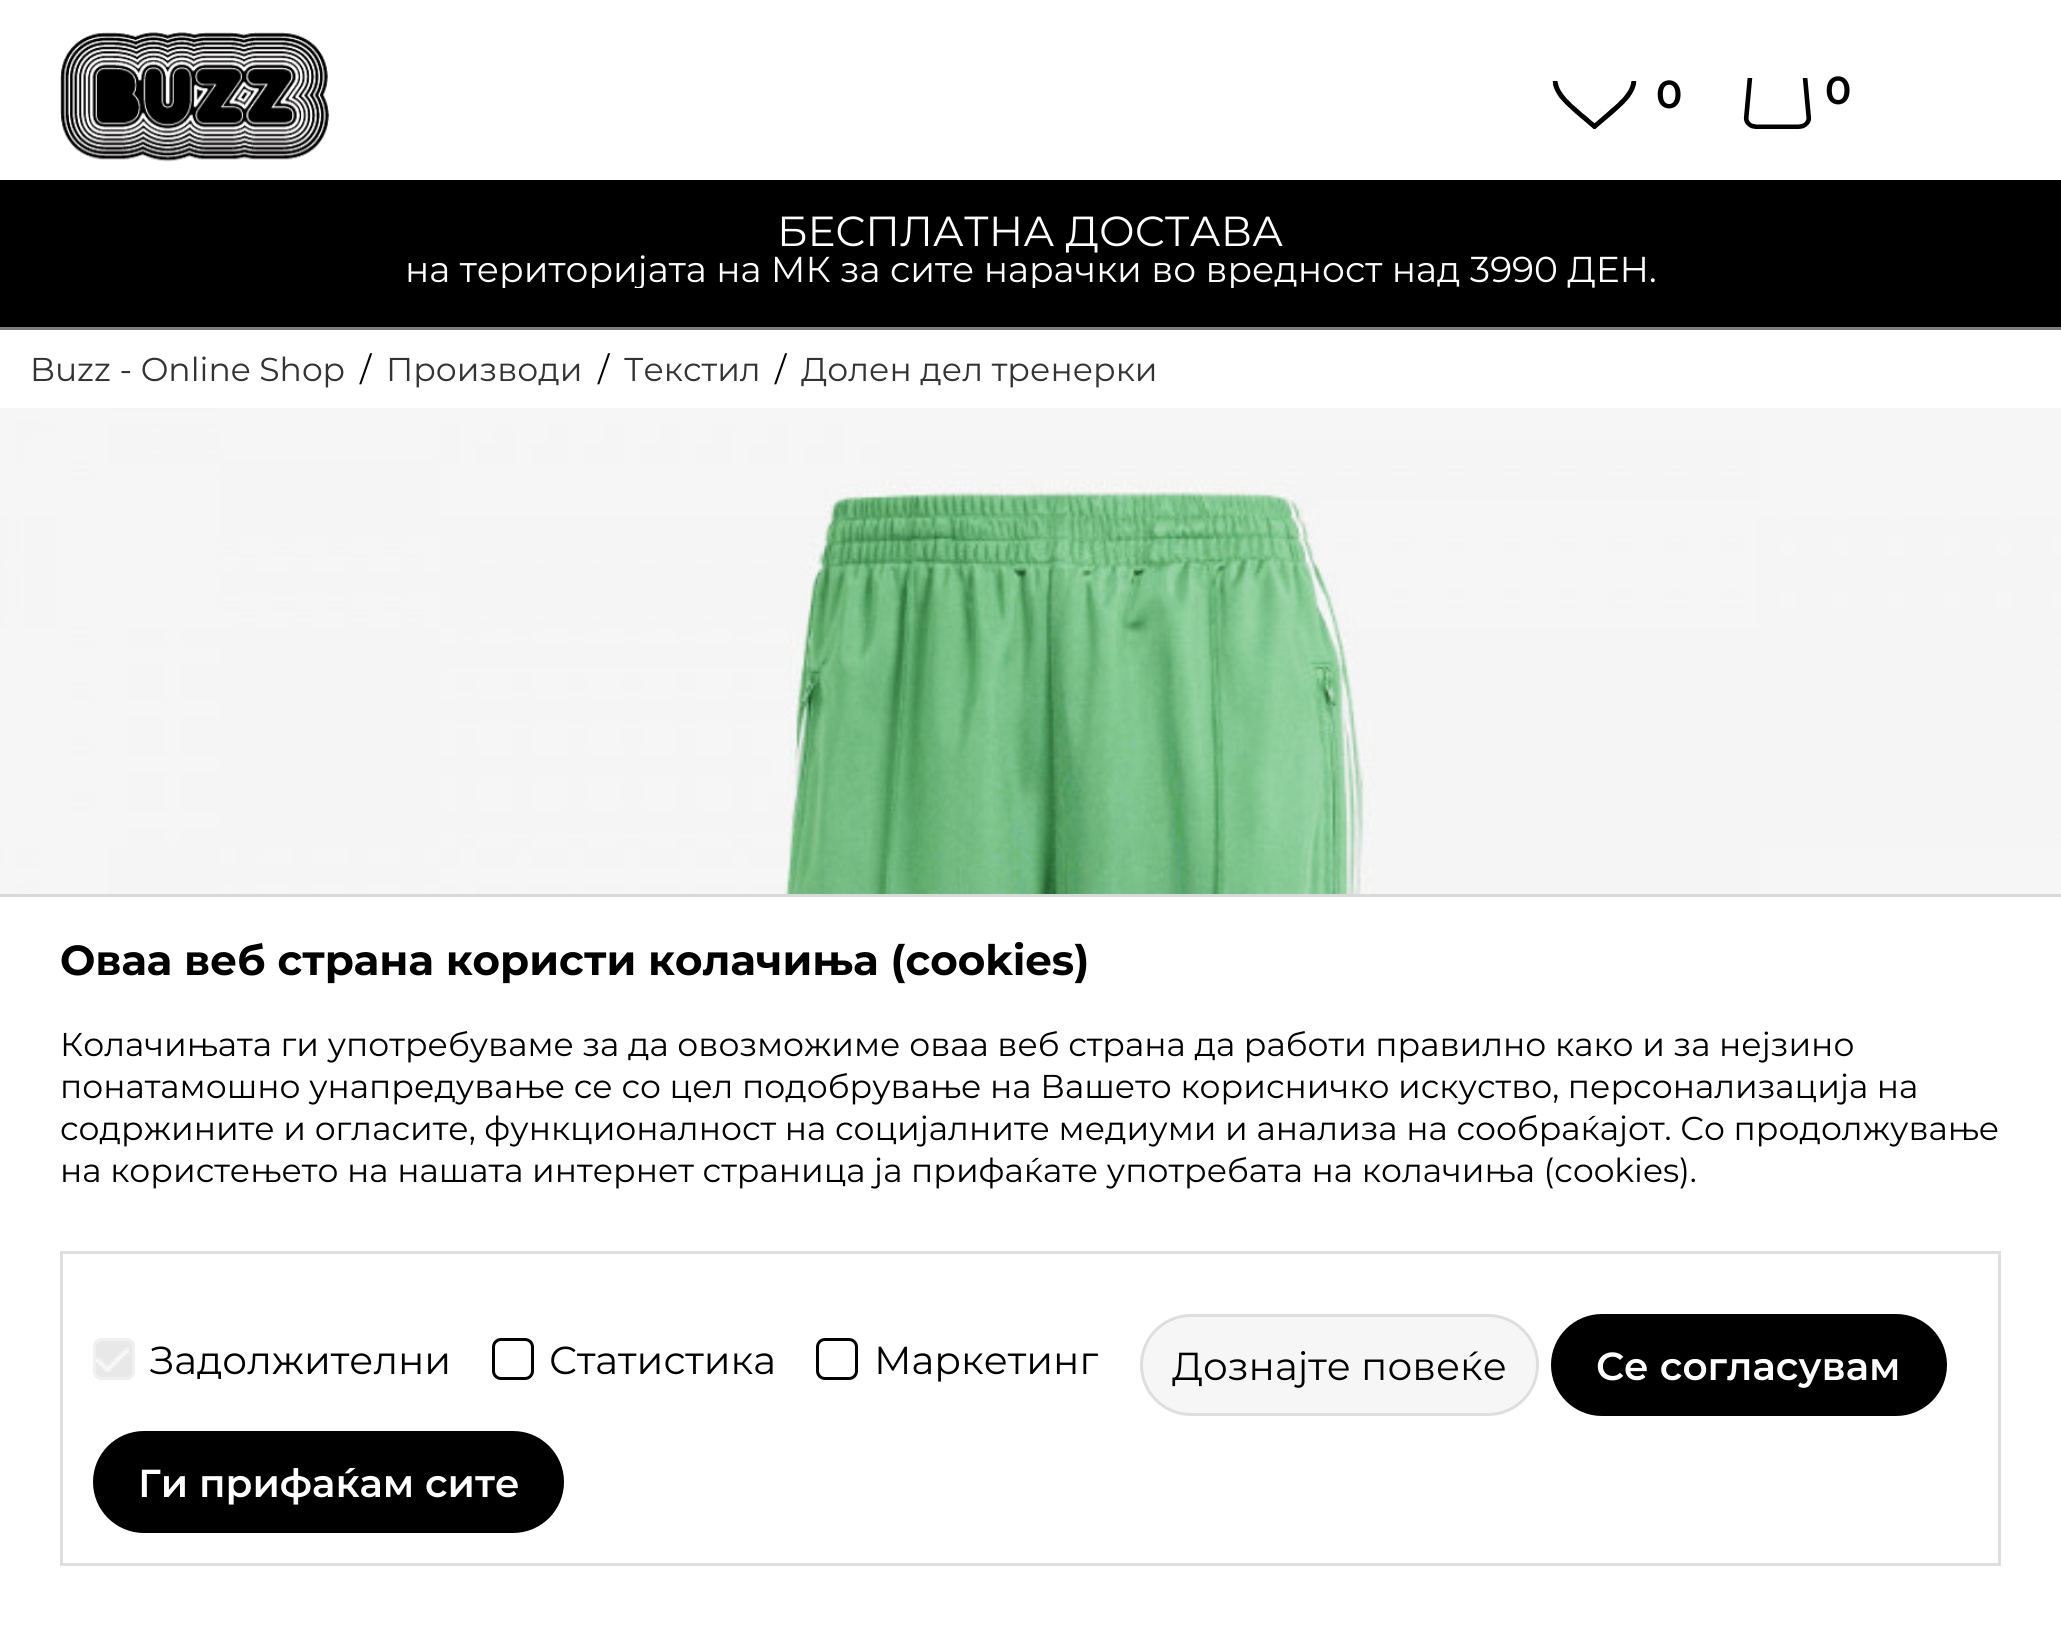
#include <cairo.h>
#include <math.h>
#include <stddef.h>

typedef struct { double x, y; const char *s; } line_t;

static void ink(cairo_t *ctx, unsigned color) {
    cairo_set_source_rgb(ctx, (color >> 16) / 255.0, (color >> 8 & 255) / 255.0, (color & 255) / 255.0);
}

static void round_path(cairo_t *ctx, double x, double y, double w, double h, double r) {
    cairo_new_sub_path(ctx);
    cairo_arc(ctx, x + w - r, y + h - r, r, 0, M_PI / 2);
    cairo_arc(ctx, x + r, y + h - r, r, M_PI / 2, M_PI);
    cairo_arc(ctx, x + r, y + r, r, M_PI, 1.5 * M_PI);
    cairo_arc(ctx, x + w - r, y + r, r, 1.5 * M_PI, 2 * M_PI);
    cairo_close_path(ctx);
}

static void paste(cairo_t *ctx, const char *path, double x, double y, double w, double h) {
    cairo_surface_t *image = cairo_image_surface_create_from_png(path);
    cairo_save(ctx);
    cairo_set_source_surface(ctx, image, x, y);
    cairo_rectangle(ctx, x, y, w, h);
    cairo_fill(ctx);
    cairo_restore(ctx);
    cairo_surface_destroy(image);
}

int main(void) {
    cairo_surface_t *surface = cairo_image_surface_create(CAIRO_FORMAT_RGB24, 2061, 1630);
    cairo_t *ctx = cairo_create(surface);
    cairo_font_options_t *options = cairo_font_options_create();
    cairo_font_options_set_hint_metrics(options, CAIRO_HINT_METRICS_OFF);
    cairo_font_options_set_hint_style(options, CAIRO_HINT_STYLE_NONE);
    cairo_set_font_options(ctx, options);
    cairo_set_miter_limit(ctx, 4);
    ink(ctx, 0xFFFFFF);
    cairo_paint(ctx);
    paste(ctx, "media/1.png", 60, 32, 269, 130);
    paste(ctx, "media/2.png", 1552, 81, 85, 48);
    cairo_select_font_face(ctx, "Montserrat SemiBold", CAIRO_FONT_SLANT_NORMAL, CAIRO_FONT_WEIGHT_NORMAL);
    cairo_set_font_size(ctx, 39);
    ink(ctx, 0x000000);
    cairo_move_to(ctx, 1656, 108);
    cairo_show_text(ctx, "0");
    paste(ctx, "media/3.png", 1743, 78, 69, 51);
    cairo_move_to(ctx, 1825, 104);
    cairo_show_text(ctx, "0");
    cairo_rectangle(ctx, 0, 180, 2061, 147);
    cairo_fill(ctx);
    ink(ctx, 0x7D7D7D);
    cairo_rectangle(ctx, 0, 327, 2061, 3);
    cairo_fill(ctx);
    cairo_select_font_face(ctx, "Montserrat", CAIRO_FONT_SLANT_NORMAL, CAIRO_FONT_WEIGHT_NORMAL);
    cairo_set_font_size(ctx, 42);
    ink(ctx, 0xFFFFFF);
    cairo_move_to(ctx, 777, 246);
    cairo_show_text(ctx, "БЕСПЛАТНА ДОСТАВА");
    cairo_save(ctx);
    cairo_rectangle(ctx, 405, 252, 1251, 36);
    cairo_clip(ctx);
    cairo_set_font_size(ctx, 36);
    cairo_move_to(ctx, 405, 282);
    cairo_show_text(ctx, "на територијата на МК за сите нарачки во вредност над 3990 ДЕН.");
    cairo_restore(ctx);
    cairo_set_font_size(ctx, 33);
    ink(ctx, 0x333333);
    cairo_move_to(ctx, 30, 381);
    cairo_show_text(ctx, "Buzz - Online Shop");
    ink(ctx, 0x000000);
    cairo_move_to(ctx, 360, 381);
    cairo_show_text(ctx, "/");
    ink(ctx, 0x333333);
    cairo_move_to(ctx, 386, 381);
    cairo_show_text(ctx, "Производи");
    ink(ctx, 0x000000);
    cairo_move_to(ctx, 598, 381);
    cairo_show_text(ctx, "/");
    ink(ctx, 0x333333);
    cairo_move_to(ctx, 624, 381);
    cairo_show_text(ctx, "Текстил");
    ink(ctx, 0x000000);
    cairo_move_to(ctx, 775, 381);
    cairo_show_text(ctx, "/");
    ink(ctx, 0x333333);
    cairo_move_to(ctx, 801, 381);
    cairo_show_text(ctx, "Долен дел тренерки");
    paste(ctx, "media/4.png", 0, 408, 2061, 486);
    cairo_rectangle(ctx, -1.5, 895.5, 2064, 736);
    ink(ctx, 0xD9D9D9);
    cairo_set_line_width(ctx, 3);
    cairo_stroke(ctx);
    cairo_select_font_face(ctx, "Montserrat", CAIRO_FONT_SLANT_NORMAL, CAIRO_FONT_WEIGHT_BOLD);
    cairo_set_font_size(ctx, 42);
    ink(ctx, 0x000000);
    cairo_move_to(ctx, 60, 975);
    cairo_show_text(ctx, "Оваа веб страна користи колачиња (cookies)");
    cairo_select_font_face(ctx, "Montserrat", CAIRO_FONT_SLANT_NORMAL, CAIRO_FONT_WEIGHT_NORMAL);
    cairo_set_font_size(ctx, 33);
    {
        static const line_t items[] = {
            {60, 1056, "Колачињата ги употребуваме за да овозможиме оваа веб страна да работи правилно како и за нејзино"},
            {60, 1098, "понатамошно унапредување се со цел подобрување на Вашето корисничко искуство, персонализација на"},
            {60, 1140, "содржините и огласите, функционалност на социјалните медиуми и анализа на сообраќајот. Со продолжување"},
            {60, 1182, "на користењето на нашата интернет страница ја прифаќате употребата на колачиња (cookies)."},
        };
        for (size_t i = 0; i < sizeof items / sizeof *items; i++) {
            cairo_move_to(ctx, items[i].x, items[i].y);
            cairo_show_text(ctx, items[i].s);
        }
    }
    cairo_rectangle(ctx, 61.5, 1252.5, 1938, 312);
    ink(ctx, 0xDEDEDE);
    cairo_stroke(ctx);
    ink(ctx, 0xE8E8E8);
    round_path(ctx, 93, 1338, 42, 42, 9);
    cairo_fill(ctx);
    paste(ctx, "media/5.png", 96, 1347, 34, 25);
    round_path(ctx, 94.5, 1339.5, 39, 39, 7.5);
    ink(ctx, 0xF0F0F0);
    cairo_stroke(ctx);
    cairo_set_font_size(ctx, 39);
    ink(ctx, 0x000000);
    cairo_move_to(ctx, 150, 1374);
    cairo_show_text(ctx, "Задолжителни");
    round_path(ctx, 493.5, 1339.5, 39, 39, 7.5);
    cairo_stroke(ctx);
    cairo_move_to(ctx, 549, 1374);
    cairo_show_text(ctx, "Статистика");
    round_path(ctx, 817.5, 1339.5, 39, 39, 7.5);
    cairo_stroke(ctx);
    cairo_move_to(ctx, 874, 1374);
    cairo_show_text(ctx, "Маркетинг");
    ink(ctx, 0xF6F6F6);
    round_path(ctx, 1141.5, 1315.5, 396, 99, 49.5);
    cairo_fill_preserve(ctx);
    ink(ctx, 0xDEDEDE);
    cairo_stroke(ctx);
    ink(ctx, 0x000000);
    cairo_move_to(ctx, 1172, 1380);
    cairo_show_text(ctx, "Дознајте повеќе");
    round_path(ctx, 1551, 1314, 396, 102, 51);
    cairo_fill(ctx);
    cairo_select_font_face(ctx, "Montserrat SemiBold", CAIRO_FONT_SLANT_NORMAL, CAIRO_FONT_WEIGHT_NORMAL);
    ink(ctx, 0xFFFFFF);
    cairo_move_to(ctx, 1596, 1380);
    cairo_show_text(ctx, "Се согласувам");
    ink(ctx, 0x000000);
    round_path(ctx, 93, 1431, 471, 102, 51);
    cairo_fill(ctx);
    ink(ctx, 0xFFFFFF);
    cairo_move_to(ctx, 138, 1497);
    cairo_show_text(ctx, "Ги прифаќам сите");
    cairo_surface_write_to_png(surface, "image.png");
    cairo_font_options_destroy(options);
    cairo_destroy(ctx);
    cairo_surface_destroy(surface);
    return 0;
}
